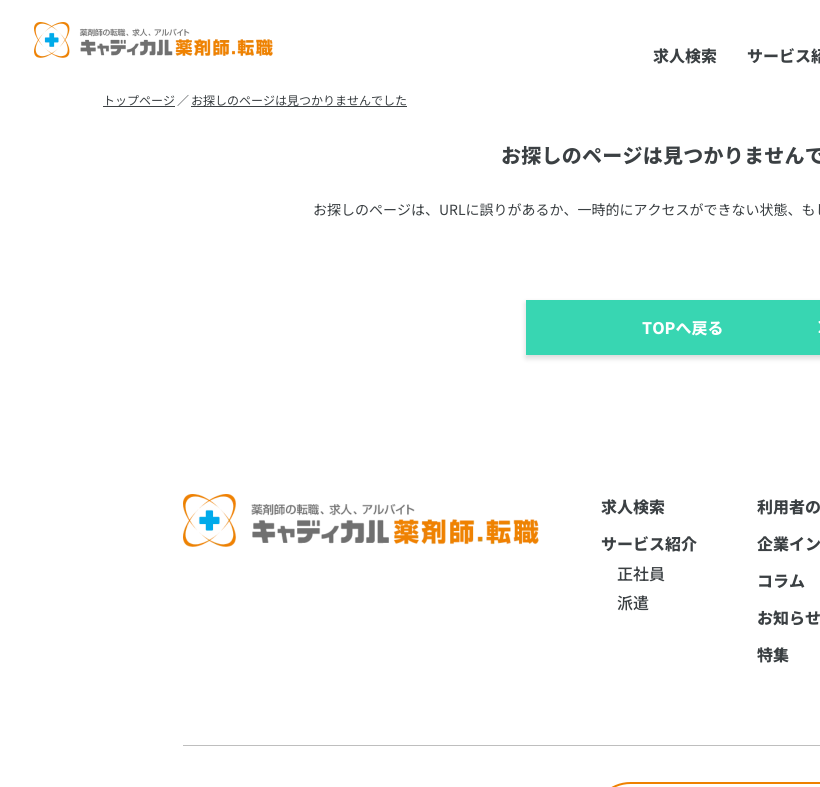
#include <cairo.h>
#include <math.h>
#include <stddef.h>

typedef struct { double x, y; const char *s; } line_t;

static void ink(cairo_t *ctx, unsigned color) {
    cairo_set_source_rgb(ctx, (color >> 16) / 255.0, (color >> 8 & 255) / 255.0, (color & 255) / 255.0);
}

static void write_spaced(cairo_t *ctx, double x, double y, const char *s, double letter, double word) {
    cairo_move_to(ctx, x, y);
    while (*s) {
        char ch[5] = {0};
        int n = 0;
        do ch[n++] = *s++; while ((*s & 0xC0) == 0x80);
        cairo_show_text(ctx, ch);
        cairo_rel_move_to(ctx, letter + word * (*ch == ' '), 0);
    }
}

static void round_path(cairo_t *ctx, double x, double y, double w, double h, double r) {
    cairo_new_sub_path(ctx);
    cairo_arc(ctx, x + w - r, y + h - r, r, 0, M_PI / 2);
    cairo_arc(ctx, x + r, y + h - r, r, M_PI / 2, M_PI);
    cairo_arc(ctx, x + r, y + r, r, M_PI, 1.5 * M_PI);
    cairo_arc(ctx, x + w - r, y + r, r, 1.5 * M_PI, 2 * M_PI);
    cairo_close_path(ctx);
}

static void blur_box(cairo_t *ctx, double x, double y, double w, double h, double r, double blur, double alpha) {
    cairo_push_group_with_content(ctx, CAIRO_CONTENT_ALPHA);
    cairo_set_operator(ctx, CAIRO_OPERATOR_SOURCE);
    for (int i = 15; i >= -15 && fmin(w, h) + blur * i / 3 > 0; i -= 2) {
        double e = blur * i / 6;
        cairo_set_source_rgba(ctx, 0, 0, 0, alpha * erfc((i - 1) / 8.5) / 2);
        round_path(ctx, x - e, y - e, w + 2 * e, h + 2 * e, fmax(0, fmin(r + e + blur * .6, fmin(w, h) / 2 + e)));
        cairo_fill(ctx);
    }
    cairo_pattern_t *soft = cairo_pop_group(ctx);
    cairo_mask(ctx, soft);
    cairo_pattern_destroy(soft);
}

static void paste(cairo_t *ctx, const char *path, double x, double y, double w, double h) {
    cairo_surface_t *image = cairo_image_surface_create_from_png(path);
    cairo_save(ctx);
    cairo_set_source_surface(ctx, image, x, y);
    cairo_rectangle(ctx, x, y, w, h);
    cairo_fill(ctx);
    cairo_restore(ctx);
    cairo_surface_destroy(image);
}

int main(void) {
    cairo_surface_t *surface = cairo_image_surface_create(CAIRO_FORMAT_RGB24, 820, 787);
    cairo_t *ctx = cairo_create(surface);
    cairo_font_options_t *options = cairo_font_options_create();
    cairo_font_options_set_hint_metrics(options, CAIRO_HINT_METRICS_OFF);
    cairo_font_options_set_hint_style(options, CAIRO_HINT_STYLE_NONE);
    cairo_set_font_options(ctx, options);
    cairo_set_miter_limit(ctx, 4);
    ink(ctx, 0xFFFFFF);
    cairo_paint(ctx);
    paste(ctx, "media/1.png", 34, 22, 239, 36);
    cairo_select_font_face(ctx, "Noto Sans JP ExtraBold", CAIRO_FONT_SLANT_NORMAL, CAIRO_FONT_WEIGHT_NORMAL);
    cairo_set_font_size(ctx, 16);
    ink(ctx, 0x3B4043);
    cairo_move_to(ctx, 653, 62);
    cairo_show_text(ctx, "求人検索");
    cairo_move_to(ctx, 747, 62);
    cairo_show_text(ctx, "サービス紹");
    cairo_select_font_face(ctx, "Noto Sans JP", CAIRO_FONT_SLANT_NORMAL, CAIRO_FONT_WEIGHT_NORMAL);
    cairo_set_font_size(ctx, 12);
    cairo_move_to(ctx, 103, 105);
    cairo_show_text(ctx, "トップページ");
    cairo_rectangle(ctx, 103, 106, 72, 1);
    cairo_fill(ctx);
    cairo_move_to(ctx, 177, 105);
    cairo_show_text(ctx, "／");
    cairo_move_to(ctx, 191, 105);
    cairo_show_text(ctx, "お探しのページは見つかりませんでした");
    cairo_rectangle(ctx, 191, 106, 216, 1);
    cairo_fill(ctx);
    cairo_select_font_face(ctx, "Noto Sans JP ExtraBold", CAIRO_FONT_SLANT_NORMAL, CAIRO_FONT_WEIGHT_NORMAL);
    cairo_set_font_size(ctx, 20);
    write_spaced(ctx, 501, 163, "お探しのページは見つかりませんで", 0.25, 0);
    cairo_select_font_face(ctx, "Noto Sans JP", CAIRO_FONT_SLANT_NORMAL, CAIRO_FONT_WEIGHT_NORMAL);
    cairo_set_font_size(ctx, 14);
    cairo_move_to(ctx, 313, 215);
    cairo_show_text(ctx, "お探しのページは、URLに誤りがあるか、一時的にアクセスができない状態、もし");
    ink(ctx, 0x000000);
    blur_box(ctx, 526, 303, 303, 55, 0, 3, 0.16);
    ink(ctx, 0x38D6B2);
    cairo_rectangle(ctx, 526, 300, 294, 55);
    cairo_fill(ctx);
    cairo_select_font_face(ctx, "Noto Sans JP ExtraBold", CAIRO_FONT_SLANT_NORMAL, CAIRO_FONT_WEIGHT_NORMAL);
    cairo_set_font_size(ctx, 16);
    ink(ctx, 0xFFFFFF);
    cairo_move_to(ctx, 642, 334);
    cairo_show_text(ctx, "TOPへ戻る");
    cairo_new_path(ctx);
    cairo_move_to(ctx, 819.5, 322);
    cairo_line_to(ctx, 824.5, 327);
    cairo_line_to(ctx, 819.5, 332);
    cairo_set_line_cap(ctx, CAIRO_LINE_CAP_ROUND);
    cairo_stroke(ctx);
    paste(ctx, "media/2.png", 183, 494, 356, 53);
    ink(ctx, 0x3B4043);
    cairo_move_to(ctx, 601, 513);
    cairo_show_text(ctx, "求人検索");
    cairo_move_to(ctx, 601, 550);
    cairo_show_text(ctx, "サービス紹介");
    cairo_select_font_face(ctx, "Noto Sans JP Medium", CAIRO_FONT_SLANT_NORMAL, CAIRO_FONT_WEIGHT_NORMAL);
    cairo_move_to(ctx, 617, 580);
    cairo_show_text(ctx, "正社員");
    cairo_move_to(ctx, 617, 609);
    cairo_show_text(ctx, "派遣");
    cairo_select_font_face(ctx, "Noto Sans JP ExtraBold", CAIRO_FONT_SLANT_NORMAL, CAIRO_FONT_WEIGHT_NORMAL);
    {
        static const line_t items[] = {
            {757, 513, "利用者の"},
            {757, 550, "企業イン"},
            {757, 587, "コラム"},
            {757, 624, "お知らせ"},
            {757, 661, "特集"},
        };
        for (size_t i = 0; i < sizeof items / sizeof *items; i++) {
            cairo_move_to(ctx, items[i].x, items[i].y);
            cairo_show_text(ctx, items[i].s);
        }
    }
    ink(ctx, 0xBEBEBE);
    cairo_rectangle(ctx, 183, 745, 637, 1);
    cairo_fill(ctx);
    round_path(ctx, 593, 783, 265, 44, 37.5);
    ink(ctx, 0xEE8100);
    cairo_set_line_cap(ctx, CAIRO_LINE_CAP_BUTT);
    cairo_stroke(ctx);
    cairo_surface_write_to_png(surface, "image.png");
    cairo_font_options_destroy(options);
    cairo_destroy(ctx);
    cairo_surface_destroy(surface);
    return 0;
}
